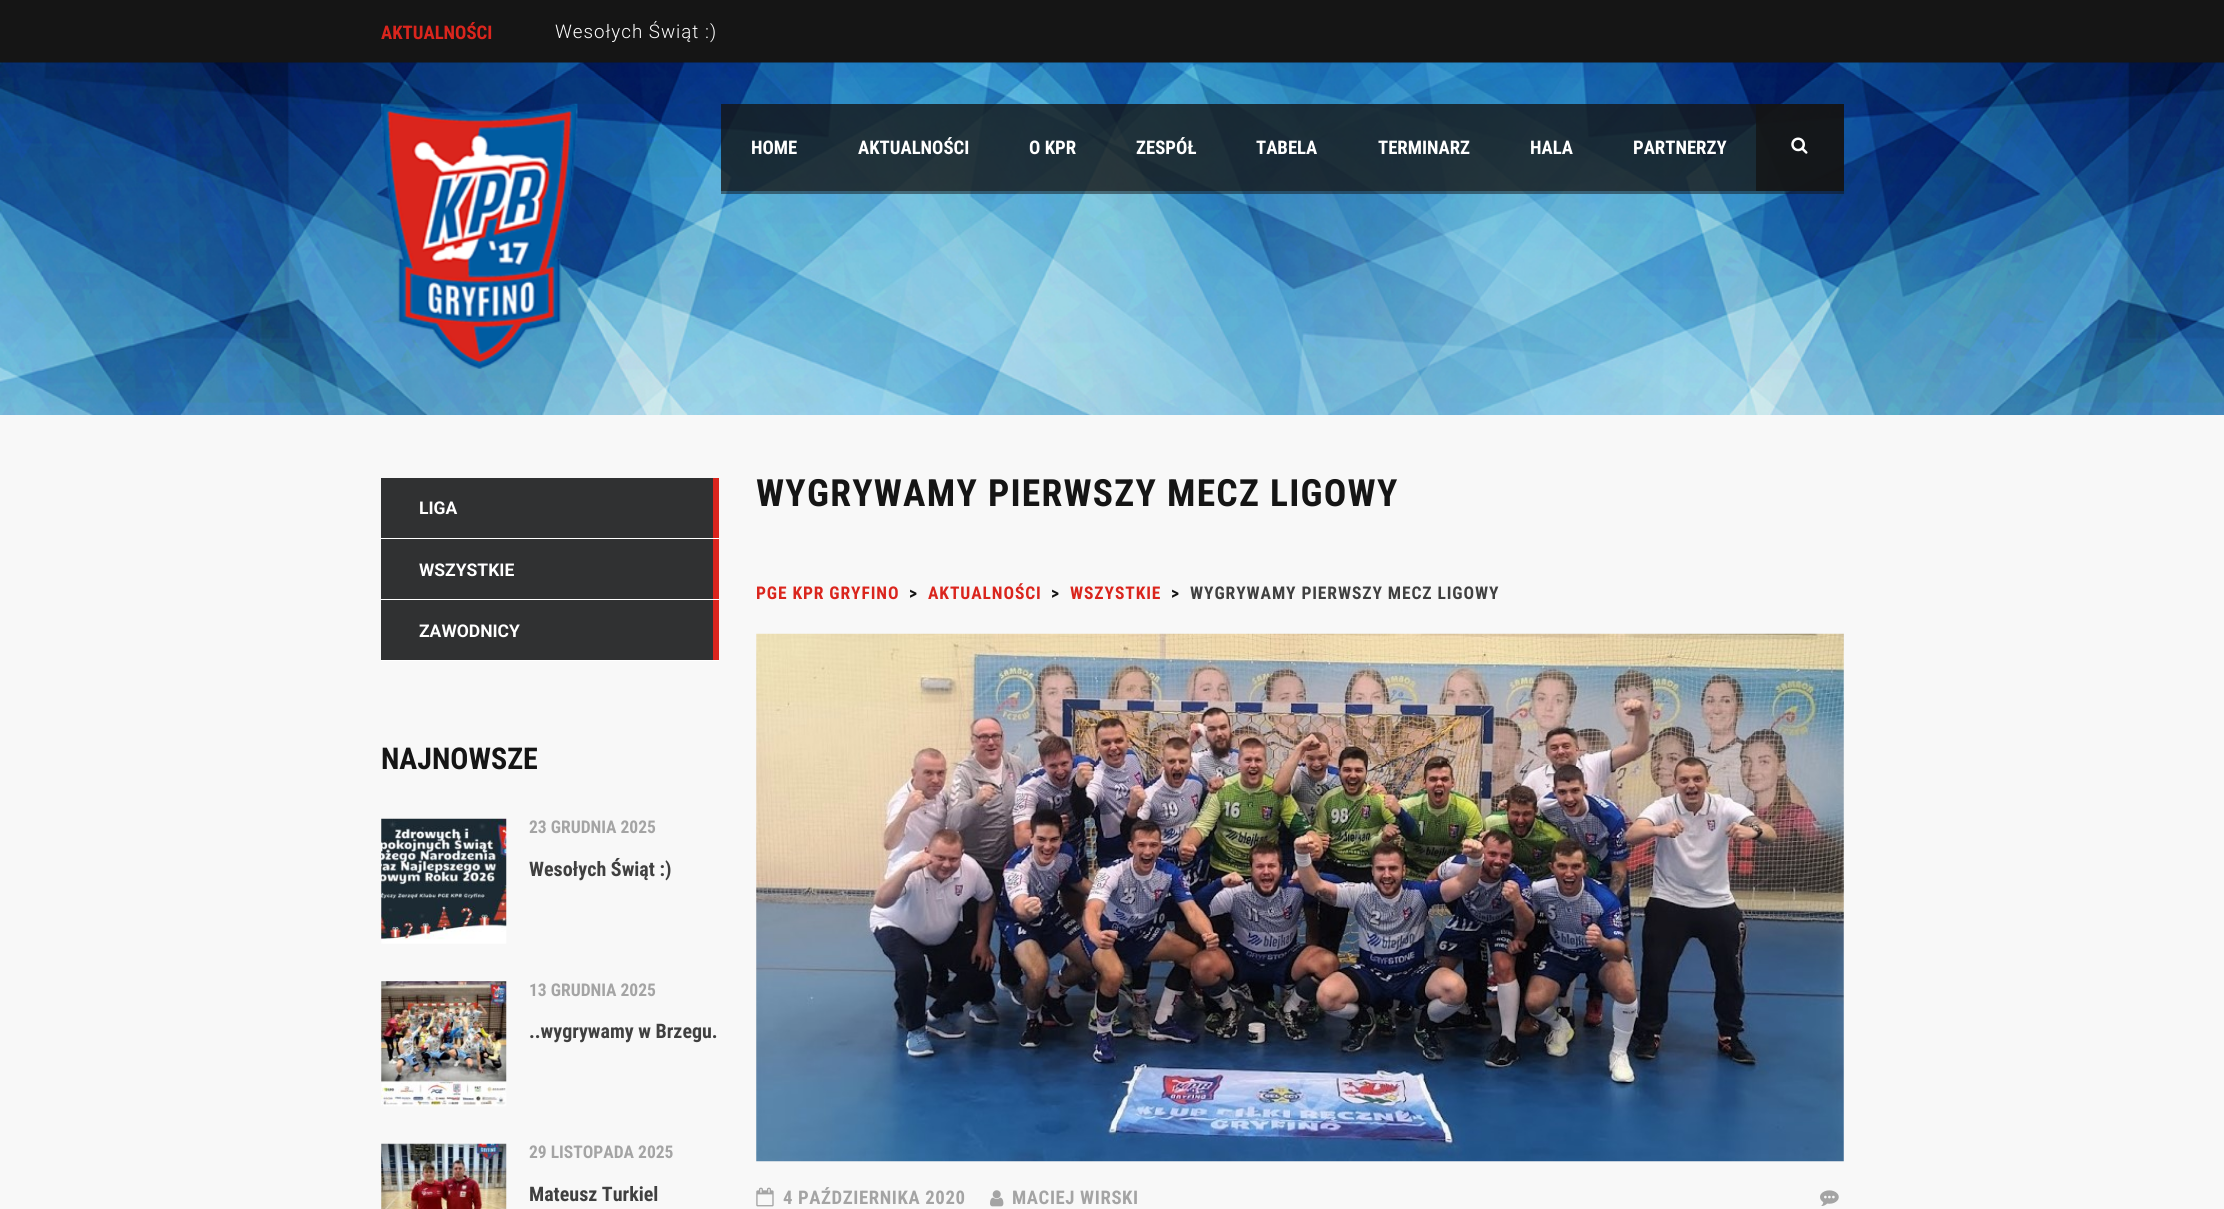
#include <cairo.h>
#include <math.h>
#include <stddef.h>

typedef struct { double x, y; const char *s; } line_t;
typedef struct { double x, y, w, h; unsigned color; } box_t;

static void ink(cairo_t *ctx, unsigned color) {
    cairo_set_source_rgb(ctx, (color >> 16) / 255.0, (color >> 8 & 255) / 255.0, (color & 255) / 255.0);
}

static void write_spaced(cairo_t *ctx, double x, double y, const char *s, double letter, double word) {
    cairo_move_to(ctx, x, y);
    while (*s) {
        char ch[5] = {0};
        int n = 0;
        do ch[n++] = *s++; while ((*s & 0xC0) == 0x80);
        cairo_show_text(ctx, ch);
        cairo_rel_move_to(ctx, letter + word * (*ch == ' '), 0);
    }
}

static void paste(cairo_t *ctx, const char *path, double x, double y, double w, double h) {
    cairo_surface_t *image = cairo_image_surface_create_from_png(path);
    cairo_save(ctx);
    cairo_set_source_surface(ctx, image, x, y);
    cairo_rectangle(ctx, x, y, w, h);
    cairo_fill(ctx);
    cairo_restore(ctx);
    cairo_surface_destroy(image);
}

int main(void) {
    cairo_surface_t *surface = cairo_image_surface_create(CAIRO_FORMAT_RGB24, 2224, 1209);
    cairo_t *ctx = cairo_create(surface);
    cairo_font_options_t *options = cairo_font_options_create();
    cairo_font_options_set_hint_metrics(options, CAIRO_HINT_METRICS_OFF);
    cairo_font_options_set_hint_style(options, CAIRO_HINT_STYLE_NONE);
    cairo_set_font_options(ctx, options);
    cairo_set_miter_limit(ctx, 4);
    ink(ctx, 0xF8F8F8);
    cairo_paint(ctx);
    ink(ctx, 0x151515);
    cairo_rectangle(ctx, 0, 0, 2224, 63);
    cairo_fill(ctx);
    cairo_select_font_face(ctx, "Roboto Condensed", CAIRO_FONT_SLANT_NORMAL, CAIRO_FONT_WEIGHT_BOLD);
    cairo_set_font_size(ctx, 18.75);
    ink(ctx, 0xDA251D);
    cairo_move_to(ctx, 381, 39);
    cairo_show_text(ctx, "AKTUALNOŚCI");
    cairo_select_font_face(ctx, "Roboto Light", CAIRO_FONT_SLANT_NORMAL, CAIRO_FONT_WEIGHT_NORMAL);
    ink(ctx, 0xFFFFFF);
    write_spaced(ctx, 555, 38, "Wesołych Świąt :)", 1, 0);
    paste(ctx, "media/1.png", 0, 62, 2224, 353);
    paste(ctx, "media/2.png", 381, 103, 197, 266);
    cairo_set_source_rgba(ctx, 0.082, 0.082, 0.082, 0.8);
    cairo_rectangle(ctx, 721, 104, 1123, 87);
    cairo_fill(ctx);
    cairo_select_font_face(ctx, "Roboto Condensed", CAIRO_FONT_SLANT_NORMAL, CAIRO_FONT_WEIGHT_BOLD);
    ink(ctx, 0xFFFFFF);
    {
        static const line_t items[] = {
            {751, 154, "HOME"},
            {858, 154, "AKTUALNOŚCI"},
            {1029, 154, "O KPR"},
            {1136, 154, "ZESPÓŁ"},
            {1256, 154, "TABELA"},
            {1378, 154, "TERMINARZ"},
            {1530, 154, "HALA"},
            {1633, 154, "PARTNERZY"},
        };
        for (size_t i = 0; i < sizeof items / sizeof *items; i++) {
            cairo_move_to(ctx, items[i].x, items[i].y);
            cairo_show_text(ctx, items[i].s);
        }
    }
    cairo_set_source_rgba(ctx, 0.082, 0.082, 0.082, 0.8);
    cairo_rectangle(ctx, 1756, 104, 88, 87);
    cairo_fill(ctx);
    paste(ctx, "media/3.png", 1791, 137, 17, 17);
    cairo_set_source_rgba(ctx, 0.082, 0.082, 0.082, 0.5);
    cairo_rectangle(ctx, 721, 191, 1123, 3);
    cairo_fill(ctx);
    ink(ctx, 0x303132);
    cairo_rectangle(ctx, 381, 478, 332, 60);
    cairo_fill(ctx);
    ink(ctx, 0xFFFFFF);
    cairo_rectangle(ctx, 381, 538, 338, 1);
    cairo_fill(ctx);
    cairo_select_font_face(ctx, "Roboto", CAIRO_FONT_SLANT_NORMAL, CAIRO_FONT_WEIGHT_BOLD);
    cairo_set_font_size(ctx, 17.5);
    cairo_move_to(ctx, 419, 514);
    cairo_show_text(ctx, "LIGA");
    {
        static const box_t items[] = {
            {713, 478, 6, 60, 0xDA251D},
            {381, 539, 332, 60, 0x303132},
            {381, 599, 338, 1, 0xFFFFFF},
        };
        for (size_t i = 0; i < sizeof items / sizeof *items; i++) {
            ink(ctx, items[i].color);
            cairo_rectangle(ctx, items[i].x, items[i].y, items[i].w, items[i].h);
            cairo_fill(ctx);
        }
    }
    cairo_move_to(ctx, 419, 576);
    cairo_show_text(ctx, "WSZYSTKIE");
    {
        static const box_t items[] = {
            {713, 539, 6, 60, 0xDA251D},
            {381, 600, 332, 60, 0x303132},
            {381, 660, 338, 1, 0xFFFFFF},
        };
        for (size_t i = 0; i < sizeof items / sizeof *items; i++) {
            ink(ctx, items[i].color);
            cairo_rectangle(ctx, items[i].x, items[i].y, items[i].w, items[i].h);
            cairo_fill(ctx);
        }
    }
    cairo_move_to(ctx, 419, 637);
    cairo_show_text(ctx, "ZAWODNICY");
    ink(ctx, 0xDA251D);
    cairo_rectangle(ctx, 713, 600, 6, 60);
    cairo_fill(ctx);
    cairo_select_font_face(ctx, "Roboto Condensed", CAIRO_FONT_SLANT_NORMAL, CAIRO_FONT_WEIGHT_BOLD);
    cairo_set_font_size(ctx, 30);
    ink(ctx, 0x151515);
    cairo_move_to(ctx, 381, 769);
    cairo_show_text(ctx, "NAJNOWSZE");
    paste(ctx, "media/4.png", 381, 818, 126, 126);
    cairo_set_font_size(ctx, 17.5);
    ink(ctx, 0xA4A4A4);
    cairo_move_to(ctx, 529, 833);
    cairo_show_text(ctx, "23 GRUDNIA 2025");
    cairo_set_font_size(ctx, 20);
    ink(ctx, 0x404040);
    cairo_move_to(ctx, 529, 876);
    cairo_show_text(ctx, "Wesołych Świąt :)");
    paste(ctx, "media/5.png", 381, 981, 126, 126);
    cairo_set_font_size(ctx, 17.5);
    ink(ctx, 0xA4A4A4);
    cairo_move_to(ctx, 529, 996);
    cairo_show_text(ctx, "13 GRUDNIA 2025");
    cairo_set_font_size(ctx, 20);
    ink(ctx, 0x404040);
    cairo_move_to(ctx, 529, 1038);
    cairo_show_text(ctx, "..wygrywamy w Brzegu.");
    paste(ctx, "media/6.png", 381, 1143, 126, 66);
    cairo_set_font_size(ctx, 17.5);
    ink(ctx, 0xA4A4A4);
    cairo_move_to(ctx, 529, 1158);
    cairo_show_text(ctx, "29 LISTOPADA 2025");
    cairo_set_font_size(ctx, 20);
    ink(ctx, 0x404040);
    cairo_move_to(ctx, 529, 1201);
    cairo_show_text(ctx, "Mateusz Turkiel");
    cairo_set_font_size(ctx, 37.5);
    ink(ctx, 0x151515);
    write_spaced(ctx, 756, 506, "WYGRYWAMY PIERWSZY MECZ LIGOWY", 1.25, 0);
    cairo_set_font_size(ctx, 17.5);
    ink(ctx, 0xDA251D);
    write_spaced(ctx, 756, 599, "PGE KPR GRYFINO", 0.9, 0);
    ink(ctx, 0x151515);
    write_spaced(ctx, 909, 599, ">", 0.9, 0);
    ink(ctx, 0xDA251D);
    write_spaced(ctx, 928, 599, "AKTUALNOŚCI", 0.9, 0);
    ink(ctx, 0x151515);
    write_spaced(ctx, 1051, 599, ">", 0.9, 0);
    ink(ctx, 0xDA251D);
    write_spaced(ctx, 1070, 599, "WSZYSTKIE", 0.9, 0);
    ink(ctx, 0x151515);
    write_spaced(ctx, 1171, 599, ">", 0.9, 0);
    ink(ctx, 0x404040);
    write_spaced(ctx, 1190, 599, "WYGRYWAMY PIERWSZY MECZ LIGOWY", 0.9, 0);
    paste(ctx, "media/7.png", 756, 633, 1088, 529);
    paste(ctx, "media/8.png", 756, 1187, 18, 20);
    cairo_set_font_size(ctx, 18.75);
    ink(ctx, 0xA4A4A4);
    write_spaced(ctx, 783, 1204, "4 PAŹDZIERNIKA 2020", 0.6, 0);
    paste(ctx, "media/9.png", 990, 1190, 14, 17);
    write_spaced(ctx, 1012, 1204, "MACIEJ WIRSKI", 0.6, 0);
    paste(ctx, "media/10.png", 1820, 1190, 19, 16);
    cairo_surface_write_to_png(surface, "image.png");
    cairo_font_options_destroy(options);
    cairo_destroy(ctx);
    cairo_surface_destroy(surface);
    return 0;
}
